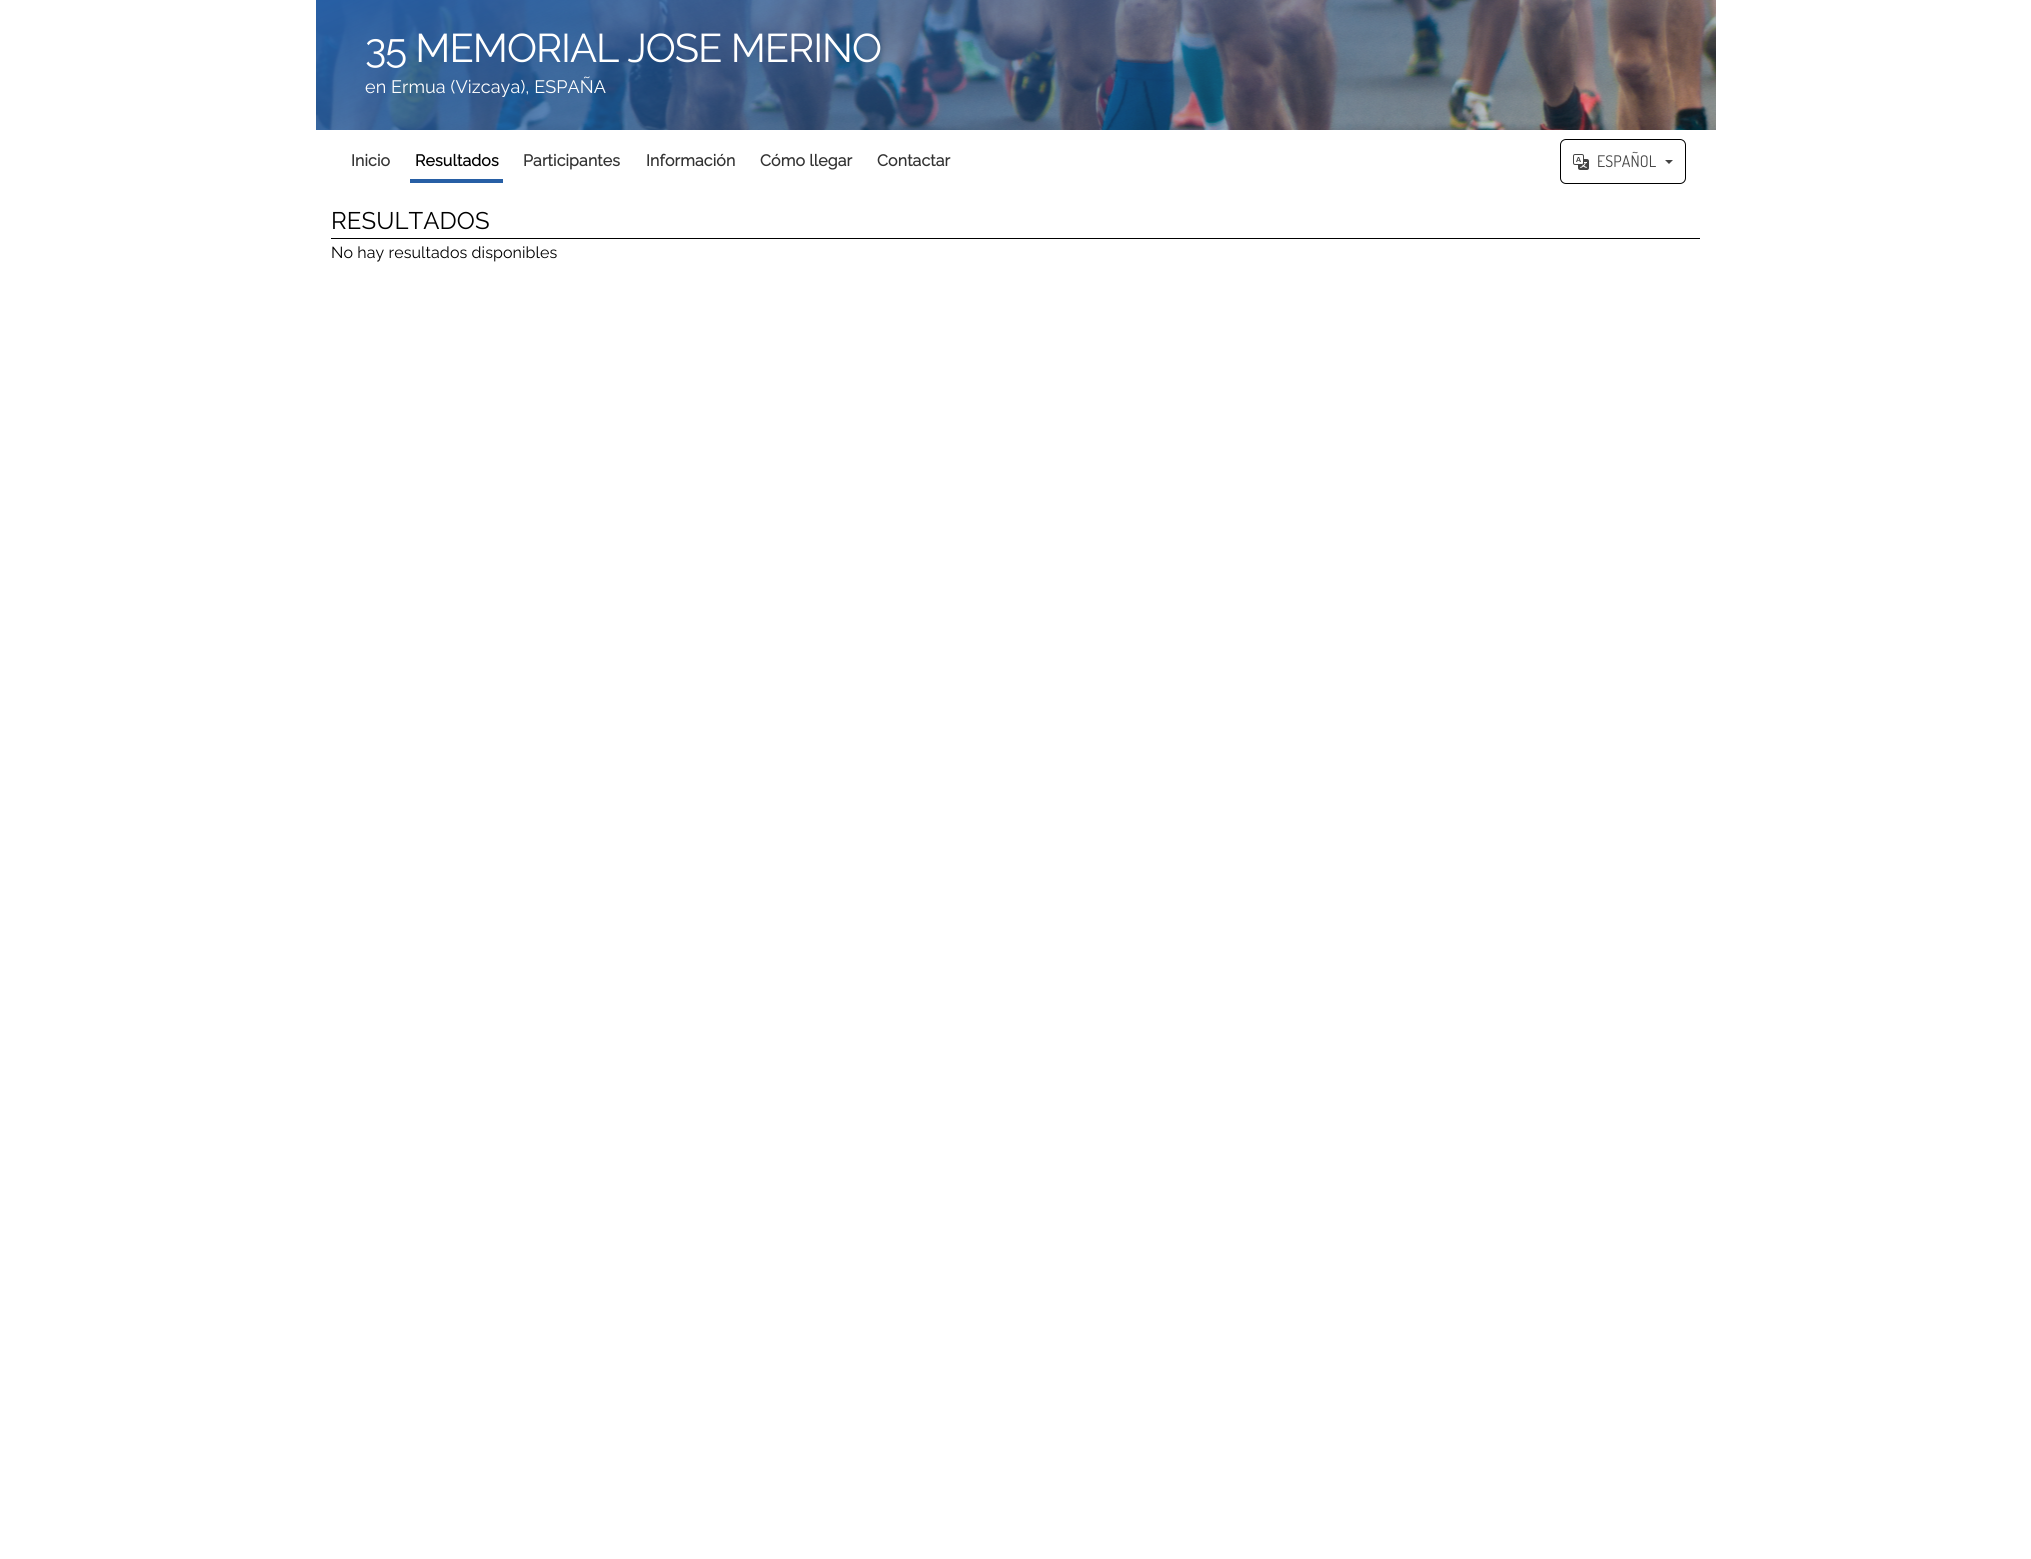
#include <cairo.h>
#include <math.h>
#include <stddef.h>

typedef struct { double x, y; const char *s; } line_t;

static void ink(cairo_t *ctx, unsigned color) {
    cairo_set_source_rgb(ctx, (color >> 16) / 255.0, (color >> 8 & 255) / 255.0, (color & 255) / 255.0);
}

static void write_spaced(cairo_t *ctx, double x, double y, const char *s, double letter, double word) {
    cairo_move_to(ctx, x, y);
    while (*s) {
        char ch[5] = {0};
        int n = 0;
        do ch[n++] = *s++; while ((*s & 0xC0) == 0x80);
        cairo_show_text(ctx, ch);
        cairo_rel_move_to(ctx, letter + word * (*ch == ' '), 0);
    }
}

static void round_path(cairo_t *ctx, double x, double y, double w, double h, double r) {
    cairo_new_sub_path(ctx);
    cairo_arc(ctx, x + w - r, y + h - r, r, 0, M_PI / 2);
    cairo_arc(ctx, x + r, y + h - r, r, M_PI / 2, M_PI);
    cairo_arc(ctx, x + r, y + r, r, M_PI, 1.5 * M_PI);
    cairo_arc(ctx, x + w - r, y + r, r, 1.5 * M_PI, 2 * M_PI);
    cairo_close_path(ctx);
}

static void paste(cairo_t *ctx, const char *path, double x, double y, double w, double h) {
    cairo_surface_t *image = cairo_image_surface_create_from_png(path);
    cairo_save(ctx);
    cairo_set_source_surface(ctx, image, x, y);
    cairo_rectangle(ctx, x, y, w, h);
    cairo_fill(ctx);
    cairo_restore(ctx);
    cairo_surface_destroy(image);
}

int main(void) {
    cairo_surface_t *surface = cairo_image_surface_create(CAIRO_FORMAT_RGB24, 2031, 1559);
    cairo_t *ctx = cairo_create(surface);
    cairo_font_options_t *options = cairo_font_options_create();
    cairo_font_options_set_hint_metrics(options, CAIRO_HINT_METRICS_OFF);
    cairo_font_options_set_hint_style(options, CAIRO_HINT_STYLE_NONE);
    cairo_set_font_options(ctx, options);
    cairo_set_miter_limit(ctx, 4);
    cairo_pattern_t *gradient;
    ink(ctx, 0xFFFFFF);
    cairo_paint(ctx);
    paste(ctx, "media/1.png", 316, 0, 1400, 130);
    gradient = cairo_pattern_create_linear(886, -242, 1146, 372);
    cairo_pattern_add_color_stop_rgba(gradient, 0, 0.153, 0.373, 0.647, 1);
    cairo_pattern_add_color_stop_rgba(gradient, 1, 0.153, 0.373, 0.647, 0);
    cairo_set_source(ctx, gradient);
    cairo_pattern_destroy(gradient);
    cairo_rectangle(ctx, 316, 0, 1400, 130);
    cairo_fill(ctx);
    cairo_select_font_face(ctx, "Raleway Thin", CAIRO_FONT_SLANT_NORMAL, CAIRO_FONT_WEIGHT_NORMAL);
    cairo_set_font_size(ctx, 40);
    ink(ctx, 0xFFFFFF);
    write_spaced(ctx, 365, 62, "35 MEMORIAL JOSE MERINO", -1, 0);
    cairo_set_font_size(ctx, 18);
    write_spaced(ctx, 365, 93, "en Ermua (Vizcaya), ESPAÑA", 0.1, 0);
    cairo_select_font_face(ctx, "Raleway", CAIRO_FONT_SLANT_NORMAL, CAIRO_FONT_WEIGHT_BOLD);
    cairo_set_font_size(ctx, 16);
    ink(ctx, 0x333333);
    write_spaced(ctx, 351, 166, "Inicio", 0.1, 0);
    ink(ctx, 0x275FA5);
    cairo_rectangle(ctx, 410, 179, 93, 4);
    cairo_fill(ctx);
    ink(ctx, 0x000000);
    write_spaced(ctx, 415, 166, "Resultados", 0.1, 0);
    ink(ctx, 0x333333);
    {
        static const line_t items[] = {
            {523, 166, "Participantes"},
            {646, 166, "Información"},
            {760, 166, "Cómo llegar"},
            {877, 166, "Contactar"},
        };
        for (size_t i = 0; i < sizeof items / sizeof *items; i++) {
            write_spaced(ctx, items[i].x, items[i].y, items[i].s, 0.1, 0);
        }
    }
    round_path(ctx, 1560.5, 139.5, 125, 44, 5.5);
    ink(ctx, 0x000000);
    cairo_set_line_width(ctx, 1);
    cairo_stroke(ctx);
    paste(ctx, "media/2.png", 1573, 154, 16, 16);
    cairo_select_font_face(ctx, "Dosis", CAIRO_FONT_SLANT_NORMAL, CAIRO_FONT_WEIGHT_NORMAL);
    ink(ctx, 0x444444);
    write_spaced(ctx, 1597, 167, "ESPAÑOL", 0.1, 0);
    cairo_new_path(ctx);
    cairo_move_to(ctx, 1665, 160);
    cairo_line_to(ctx, 1673, 160);
    cairo_line_to(ctx, 1669, 164);
    cairo_close_path(ctx);
    cairo_fill(ctx);
    ink(ctx, 0x000000);
    cairo_rectangle(ctx, 331, 238, 1369, 1);
    cairo_fill(ctx);
    cairo_select_font_face(ctx, "Raleway Thin", CAIRO_FONT_SLANT_NORMAL, CAIRO_FONT_WEIGHT_NORMAL);
    cairo_set_font_size(ctx, 24);
    write_spaced(ctx, 331, 229, "RESULTADOS", 0.1, 0);
    cairo_set_font_size(ctx, 16);
    write_spaced(ctx, 331, 258, "No hay resultados disponibles", 0.1, 0);
    cairo_surface_write_to_png(surface, "image.png");
    cairo_font_options_destroy(options);
    cairo_destroy(ctx);
    cairo_surface_destroy(surface);
    return 0;
}
